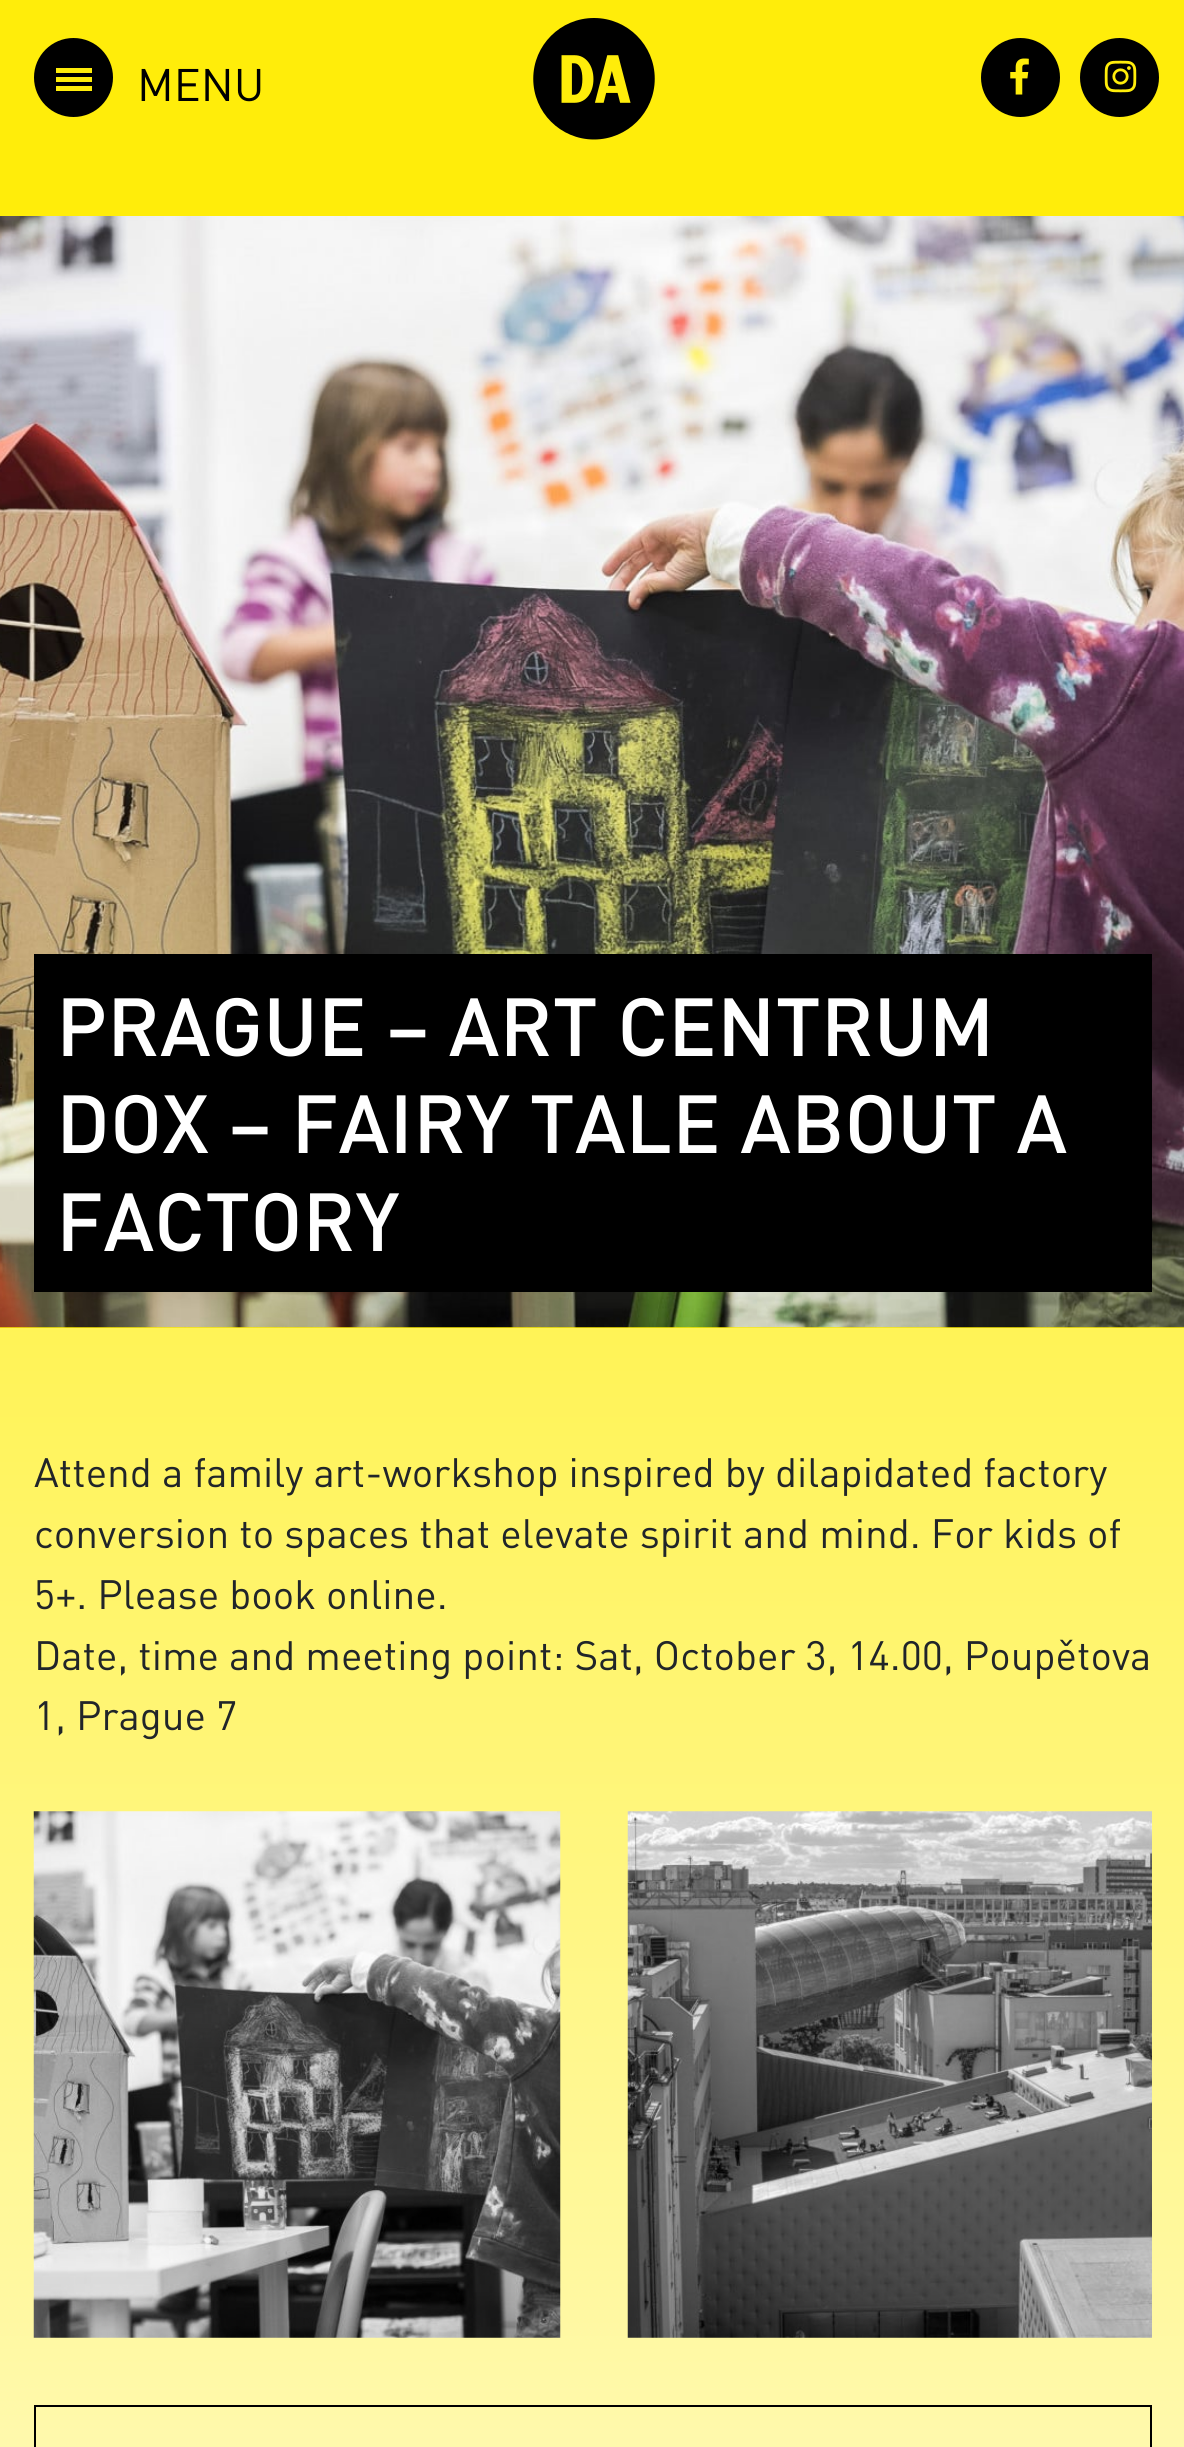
#include <cairo.h>
#include <math.h>
#include <stddef.h>

typedef struct { double x, y; const char *s; } line_t;
typedef struct { double x, y, w, h; unsigned color; } box_t;

static void ink(cairo_t *ctx, unsigned color) {
    cairo_set_source_rgb(ctx, (color >> 16) / 255.0, (color >> 8 & 255) / 255.0, (color & 255) / 255.0);
}

static void paste(cairo_t *ctx, const char *path, double x, double y, double w, double h) {
    cairo_surface_t *image = cairo_image_surface_create_from_png(path);
    cairo_save(ctx);
    cairo_set_source_surface(ctx, image, x, y);
    cairo_rectangle(ctx, x, y, w, h);
    cairo_fill(ctx);
    cairo_restore(ctx);
    cairo_surface_destroy(image);
}

int main(void) {
    cairo_surface_t *surface = cairo_image_surface_create(CAIRO_FORMAT_RGB24, 1184, 2447);
    cairo_t *ctx = cairo_create(surface);
    cairo_font_options_t *options = cairo_font_options_create();
    cairo_font_options_set_hint_metrics(options, CAIRO_HINT_METRICS_OFF);
    cairo_font_options_set_hint_style(options, CAIRO_HINT_STYLE_NONE);
    cairo_set_font_options(ctx, options);
    cairo_set_miter_limit(ctx, 4);
    cairo_pattern_t *gradient;
    ink(ctx, 0xFFFFFF);
    cairo_paint(ctx);
    ink(ctx, 0xFFED0A);
    cairo_rectangle(ctx, 0, 0, 1184, 216);
    cairo_fill(ctx);
    ink(ctx, 0x000000);
    cairo_arc(ctx, 73.5, 77.5, 39.5, 0, 2 * M_PI);
    cairo_fill(ctx);
    {
        static const box_t items[] = {
            {56, 68, 36, 5, 0xFFED0A},
            {56, 77, 36, 5, 0xFFED0A},
            {56, 86, 36, 5, 0xFFED0A},
        };
        for (size_t i = 0; i < sizeof items / sizeof *items; i++) {
            ink(ctx, items[i].color);
            cairo_rectangle(ctx, items[i].x, items[i].y, items[i].w, items[i].h);
            cairo_fill(ctx);
        }
    }
    cairo_select_font_face(ctx, "DIN", CAIRO_FONT_SLANT_NORMAL, CAIRO_FONT_WEIGHT_NORMAL);
    cairo_set_font_size(ctx, 45);
    ink(ctx, 0x000000);
    cairo_move_to(ctx, 137, 101);
    cairo_show_text(ctx, "MENU");
    paste(ctx, "media/1.png", 533, 18, 122, 122);
    cairo_arc(ctx, 1020.5, 77.5, 39.5, 0, 2 * M_PI);
    cairo_fill(ctx);
    paste(ctx, "media/2.png", 1010, 58, 19, 37);
    cairo_arc(ctx, 1119.5, 77.5, 39.5, 0, 2 * M_PI);
    cairo_fill(ctx);
    paste(ctx, "media/3.png", 1104, 60, 33, 33);
    gradient = cairo_pattern_create_linear(593, 203, 593, 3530);
    cairo_pattern_add_color_stop_rgba(gradient, 0, 1, 0.929, 0, 1);
    cairo_pattern_add_color_stop_rgba(gradient, 1, 1, 1, 1, 1);
    cairo_set_source(ctx, gradient);
    cairo_pattern_destroy(gradient);
    cairo_rectangle(ctx, 0, 1328, 1184, 1119);
    cairo_fill(ctx);
    ink(ctx, 0xFFED00);
    cairo_rectangle(ctx, 0, 1327, 1184, 1);
    cairo_fill(ctx);
    paste(ctx, "media/4.png", 0, 216, 1184, 1112);
    ink(ctx, 0x000000);
    cairo_rectangle(ctx, 34, 954, 1118, 338);
    cairo_fill(ctx);
    cairo_select_font_face(ctx, "DIN Medium", CAIRO_FONT_SLANT_NORMAL, CAIRO_FONT_WEIGHT_NORMAL);
    cairo_set_font_size(ctx, 81);
    ink(ctx, 0xFFFFFF);
    {
        static const line_t items[] = {
            {56, 1056, "PRAGUE – ART CENTRUM"},
            {56, 1153, "DOX – FAIRY TALE ABOUT A"},
            {56, 1251, "FACTORY"},
        };
        for (size_t i = 0; i < sizeof items / sizeof *items; i++) {
            cairo_move_to(ctx, items[i].x, items[i].y);
            cairo_show_text(ctx, items[i].s);
        }
    }
    cairo_select_font_face(ctx, "DIN", CAIRO_FONT_SLANT_NORMAL, CAIRO_FONT_WEIGHT_NORMAL);
    cairo_set_font_size(ctx, 40.5);
    ink(ctx, 0x212529);
    {
        static const line_t items[] = {
            {34, 1487, "Attend a family art-workshop inspired by dilapidated factory"},
            {34, 1548, "conversion to spaces that elevate spirit and mind. For kids of"},
            {34, 1609, "5+. Please book online."},
            {34, 1670, "Date, time and meeting point: Sat, October 3, 14.00, Poupětova"},
            {34, 1730, "1, Prague 7"},
        };
        for (size_t i = 0; i < sizeof items / sizeof *items; i++) {
            cairo_move_to(ctx, items[i].x, items[i].y);
            cairo_show_text(ctx, items[i].s);
        }
    }
    paste(ctx, "media/5.png", 33, 1811, 528, 527);
    paste(ctx, "media/6.png", 627, 1811, 525, 527);
    cairo_rectangle(ctx, 35, 2406, 1116, 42);
    ink(ctx, 0x000000);
    cairo_stroke(ctx);
    cairo_surface_write_to_png(surface, "image.png");
    cairo_font_options_destroy(options);
    cairo_destroy(ctx);
    cairo_surface_destroy(surface);
    return 0;
}
